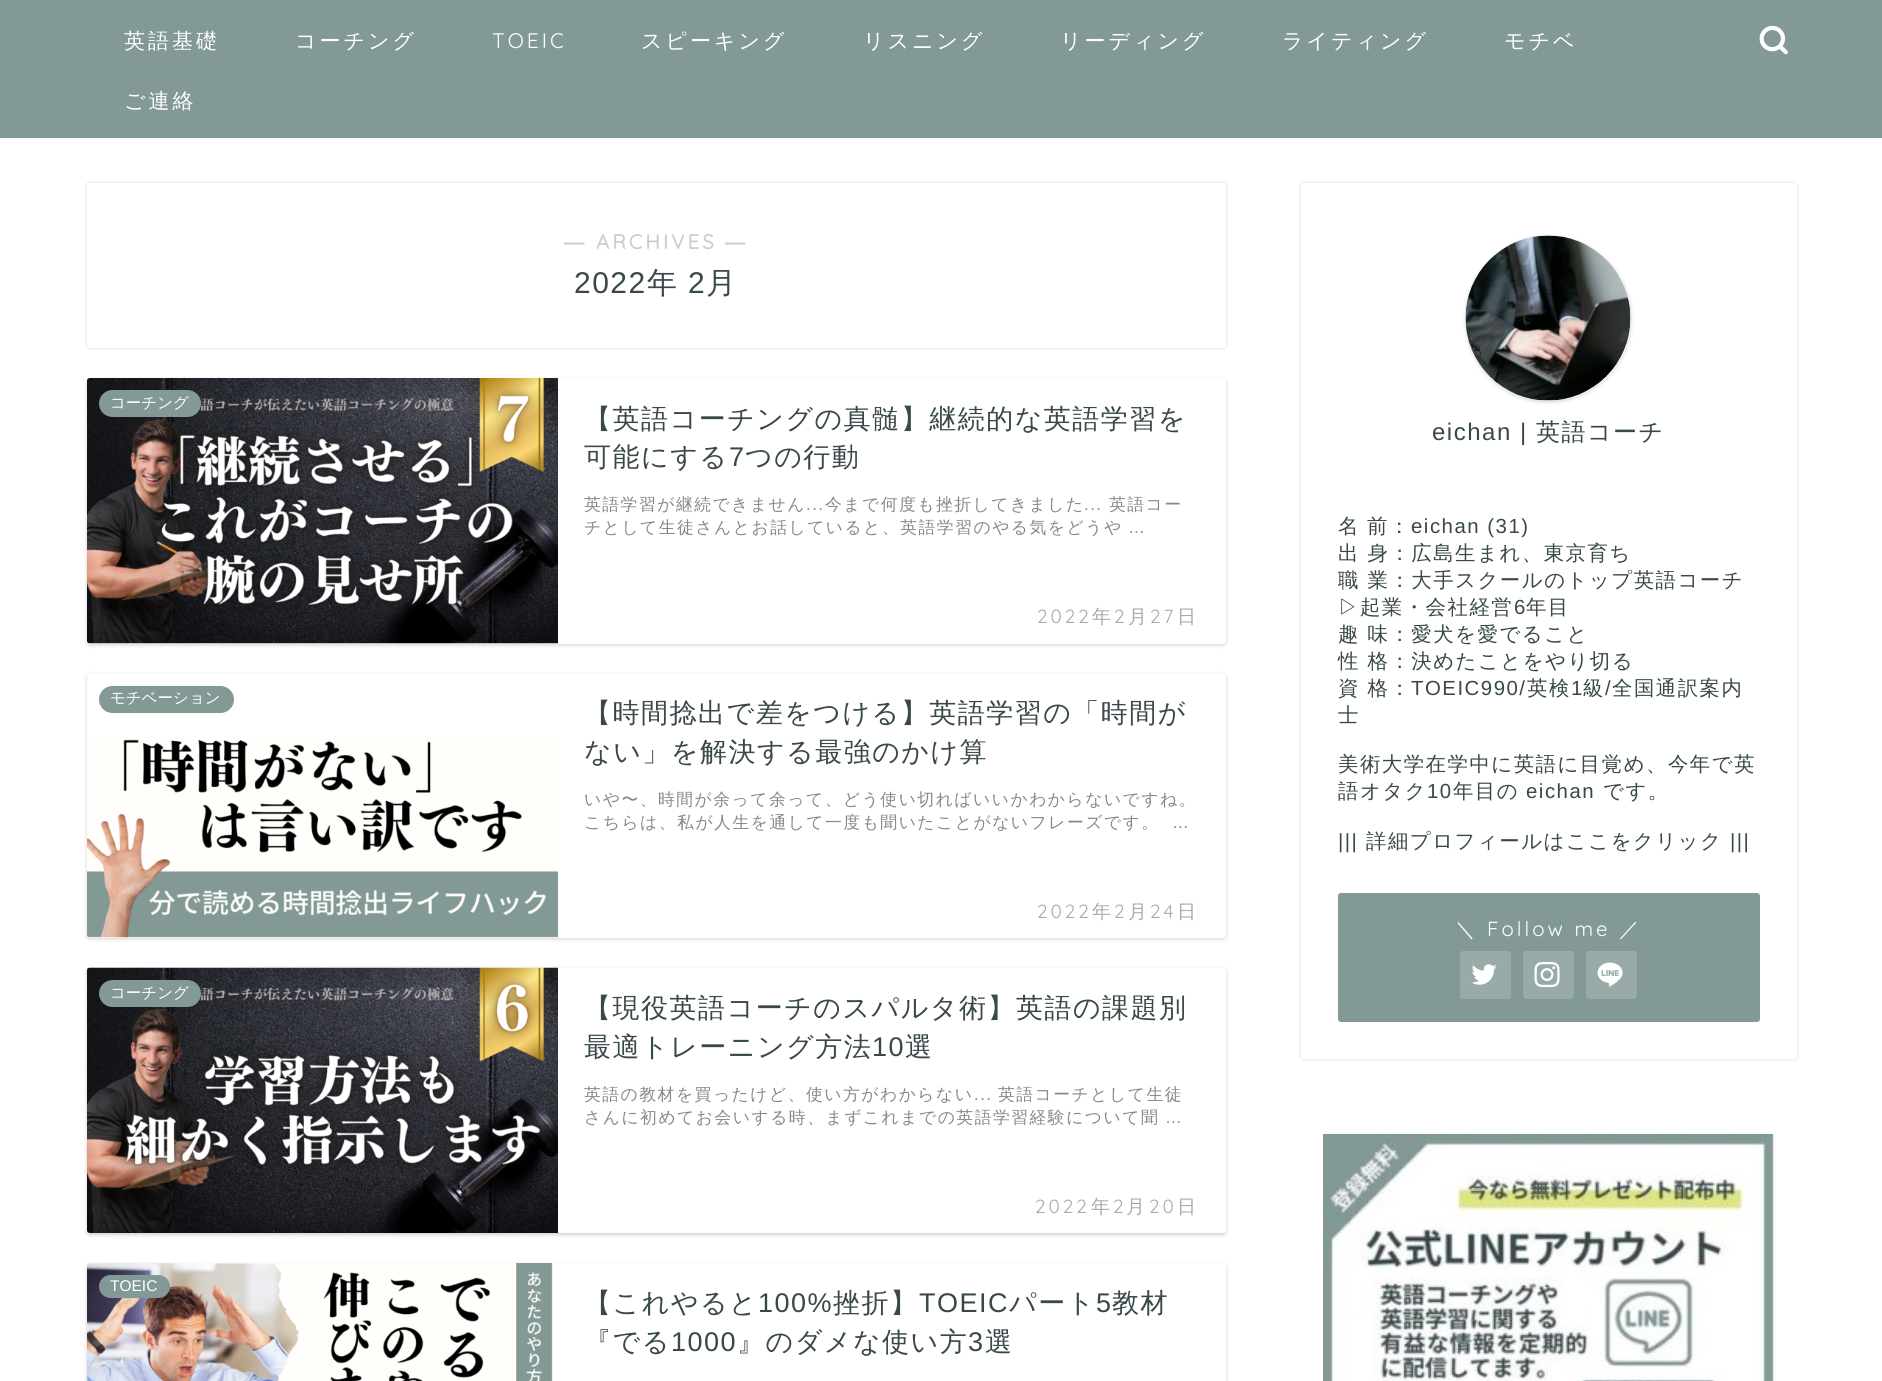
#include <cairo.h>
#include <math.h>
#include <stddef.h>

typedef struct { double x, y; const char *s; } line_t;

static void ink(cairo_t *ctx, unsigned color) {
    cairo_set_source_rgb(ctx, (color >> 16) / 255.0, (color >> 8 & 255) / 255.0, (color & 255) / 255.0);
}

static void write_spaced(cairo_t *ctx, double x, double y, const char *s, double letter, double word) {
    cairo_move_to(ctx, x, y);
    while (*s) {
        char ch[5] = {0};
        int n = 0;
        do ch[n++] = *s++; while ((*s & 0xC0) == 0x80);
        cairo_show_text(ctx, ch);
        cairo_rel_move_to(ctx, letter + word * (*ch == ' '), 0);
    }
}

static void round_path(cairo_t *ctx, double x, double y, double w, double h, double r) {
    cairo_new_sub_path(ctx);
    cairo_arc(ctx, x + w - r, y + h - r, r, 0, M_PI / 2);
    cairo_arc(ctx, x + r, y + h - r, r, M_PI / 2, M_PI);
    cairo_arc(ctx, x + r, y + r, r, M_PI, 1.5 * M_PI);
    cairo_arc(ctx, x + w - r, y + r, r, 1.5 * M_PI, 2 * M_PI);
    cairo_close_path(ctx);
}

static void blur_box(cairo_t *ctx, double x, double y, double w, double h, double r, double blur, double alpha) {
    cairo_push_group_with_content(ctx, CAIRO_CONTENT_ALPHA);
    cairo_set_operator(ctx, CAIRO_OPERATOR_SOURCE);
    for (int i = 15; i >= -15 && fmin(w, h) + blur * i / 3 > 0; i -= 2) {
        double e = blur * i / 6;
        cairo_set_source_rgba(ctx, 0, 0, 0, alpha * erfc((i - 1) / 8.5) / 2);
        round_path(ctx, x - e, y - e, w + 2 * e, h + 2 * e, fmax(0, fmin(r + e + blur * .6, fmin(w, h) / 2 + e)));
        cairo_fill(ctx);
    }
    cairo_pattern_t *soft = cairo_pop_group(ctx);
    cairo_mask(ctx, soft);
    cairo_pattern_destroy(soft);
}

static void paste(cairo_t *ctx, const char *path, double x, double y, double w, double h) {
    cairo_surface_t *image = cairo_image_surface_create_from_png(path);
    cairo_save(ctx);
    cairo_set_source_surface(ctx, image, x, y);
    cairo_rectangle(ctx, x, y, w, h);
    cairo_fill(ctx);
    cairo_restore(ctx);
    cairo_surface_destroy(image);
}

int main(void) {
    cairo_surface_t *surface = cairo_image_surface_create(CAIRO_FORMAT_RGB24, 1882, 1381);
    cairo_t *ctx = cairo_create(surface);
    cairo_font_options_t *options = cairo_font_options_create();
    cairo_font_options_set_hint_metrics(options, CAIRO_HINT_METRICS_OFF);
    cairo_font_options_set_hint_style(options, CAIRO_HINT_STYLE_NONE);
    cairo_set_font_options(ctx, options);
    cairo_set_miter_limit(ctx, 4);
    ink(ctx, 0xFFFFFF);
    cairo_paint(ctx);
    ink(ctx, 0x829995);
    cairo_rectangle(ctx, 0, 0, 1882, 138);
    cairo_fill(ctx);
    cairo_select_font_face(ctx, "WenQuanYi Zen Hei Medium", CAIRO_FONT_SLANT_NORMAL, CAIRO_FONT_WEIGHT_NORMAL);
    cairo_set_font_size(ctx, 21);
    ink(ctx, 0xFFFFFF);
    write_spaced(ctx, 124, 48, "英語基礎", 3, 0);
    write_spaced(ctx, 295, 48, "コーチング", 3, 0);
    cairo_select_font_face(ctx, "Quicksand Light", CAIRO_FONT_SLANT_NORMAL, CAIRO_FONT_WEIGHT_NORMAL);
    write_spaced(ctx, 492, 48, "TOEIC", 3, 0);
    cairo_select_font_face(ctx, "WenQuanYi Zen Hei Medium", CAIRO_FONT_SLANT_NORMAL, CAIRO_FONT_WEIGHT_NORMAL);
    {
        static const line_t items[] = {
            {641, 48, "スピーキング"},
            {863, 48, "リスニング"},
            {1060, 48, "リーディング"},
            {1282, 48, "ライティング"},
            {1504, 48, "モチベ"},
            {124, 108, "ご連絡"},
        };
        for (size_t i = 0; i < sizeof items / sizeof *items; i++) {
            write_spaced(ctx, items[i].x, items[i].y, items[i].s, 3, 0);
        }
    }
    paste(ctx, "media/1.png", 1759, 25, 29, 30);
    ink(ctx, 0x000000);
    blur_box(ctx, 87, 183, 1139, 165, 3, 1.5, 0.18);
    ink(ctx, 0xFFFFFF);
    round_path(ctx, 87, 183, 1139, 165, 3);
    cairo_fill(ctx);
    cairo_select_font_face(ctx, "Liberation Sans", CAIRO_FONT_SLANT_NORMAL, CAIRO_FONT_WEIGHT_BOLD);
    cairo_set_font_size(ctx, 20.4);
    ink(ctx, 0xCCCCCC);
    write_spaced(ctx, 564, 249, "―", 3, 0);
    cairo_select_font_face(ctx, "Quicksand", CAIRO_FONT_SLANT_NORMAL, CAIRO_FONT_WEIGHT_BOLD);
    write_spaced(ctx, 596, 249, "ARCHIVES", 3, 0);
    cairo_select_font_face(ctx, "Liberation Sans", CAIRO_FONT_SLANT_NORMAL, CAIRO_FONT_WEIGHT_BOLD);
    write_spaced(ctx, 725, 249, "―", 3, 0);
    cairo_select_font_face(ctx, "Liberation Sans", CAIRO_FONT_SLANT_NORMAL, CAIRO_FONT_WEIGHT_NORMAL);
    cairo_set_font_size(ctx, 30);
    ink(ctx, 0x394849);
    write_spaced(ctx, 574, 293, "2022", 1.5, 0);
    cairo_select_font_face(ctx, "WenQuanYi Zen Hei Medium", CAIRO_FONT_SLANT_NORMAL, CAIRO_FONT_WEIGHT_NORMAL);
    write_spaced(ctx, 647, 293, "年", 1.5, 0);
    cairo_select_font_face(ctx, "Liberation Sans", CAIRO_FONT_SLANT_NORMAL, CAIRO_FONT_WEIGHT_NORMAL);
    write_spaced(ctx, 688, 293, "2", 1.5, 0);
    cairo_select_font_face(ctx, "WenQuanYi Zen Hei Medium", CAIRO_FONT_SLANT_NORMAL, CAIRO_FONT_WEIGHT_NORMAL);
    write_spaced(ctx, 706, 293, "月", 1.5, 0);
    ink(ctx, 0x000000);
    blur_box(ctx, 87, 380, 1139, 265, 3, 2, 0.18);
    ink(ctx, 0xFFFFFF);
    round_path(ctx, 87, 378, 1139, 266, 3);
    cairo_fill(ctx);
    paste(ctx, "media/2.png", 87, 378, 471, 266);
    ink(ctx, 0x829995);
    round_path(ctx, 99, 390, 102, 27, 13.5);
    cairo_fill(ctx);
    cairo_set_font_size(ctx, 15.5);
    ink(ctx, 0xFFFFFF);
    cairo_move_to(ctx, 110, 408);
    cairo_show_text(ctx, "コーチング");
    cairo_set_font_size(ctx, 27);
    ink(ctx, 0x394849);
    write_spaced(ctx, 584, 428, "【英語コーチングの真髄】継続的な英語学習を", 1.5, 0);
    write_spaced(ctx, 584, 466, "可能にする", 1.5, 0);
    cairo_select_font_face(ctx, "Liberation Sans", CAIRO_FONT_SLANT_NORMAL, CAIRO_FONT_WEIGHT_NORMAL);
    write_spaced(ctx, 729, 466, "7", 1.5, 0);
    cairo_select_font_face(ctx, "WenQuanYi Zen Hei Medium", CAIRO_FONT_SLANT_NORMAL, CAIRO_FONT_WEIGHT_NORMAL);
    write_spaced(ctx, 745, 466, "つの行動", 1.5, 0);
    cairo_set_font_size(ctx, 16.8);
    ink(ctx, 0x888888);
    write_spaced(ctx, 584, 510, "英語学習が継続できません", 1.5, 0);
    cairo_select_font_face(ctx, "Liberation Sans", CAIRO_FONT_SLANT_NORMAL, CAIRO_FONT_WEIGHT_NORMAL);
    write_spaced(ctx, 806, 510, "...", 1.5, 0);
    cairo_select_font_face(ctx, "WenQuanYi Zen Hei Medium", CAIRO_FONT_SLANT_NORMAL, CAIRO_FONT_WEIGHT_NORMAL);
    write_spaced(ctx, 825, 510, "今まで何度も挫折してきました", 1.5, 0);
    cairo_select_font_face(ctx, "Liberation Sans", CAIRO_FONT_SLANT_NORMAL, CAIRO_FONT_WEIGHT_NORMAL);
    write_spaced(ctx, 1084, 510, "...", 1.5, 0);
    cairo_select_font_face(ctx, "WenQuanYi Zen Hei Medium", CAIRO_FONT_SLANT_NORMAL, CAIRO_FONT_WEIGHT_NORMAL);
    write_spaced(ctx, 1109, 510, "英語コー", 1.5, 0);
    write_spaced(ctx, 584, 533, "チとして生徒さんとお話していると、英語学習のやる気をどうや", 1.5, 0);
    cairo_select_font_face(ctx, "Liberation Sans", CAIRO_FONT_SLANT_NORMAL, CAIRO_FONT_WEIGHT_NORMAL);
    write_spaced(ctx, 1128, 533, "…", 1.5, 0);
    cairo_select_font_face(ctx, "Quicksand Light", CAIRO_FONT_SLANT_NORMAL, CAIRO_FONT_WEIGHT_NORMAL);
    cairo_set_font_size(ctx, 19);
    ink(ctx, 0xAAAAAA);
    write_spaced(ctx, 1037, 623, "2022", 3, 0);
    cairo_select_font_face(ctx, "WenQuanYi Zen Hei Medium", CAIRO_FONT_SLANT_NORMAL, CAIRO_FONT_WEIGHT_NORMAL);
    write_spaced(ctx, 1092, 623, "年", 3, 0);
    cairo_select_font_face(ctx, "Quicksand Light", CAIRO_FONT_SLANT_NORMAL, CAIRO_FONT_WEIGHT_NORMAL);
    write_spaced(ctx, 1114, 623, "2", 3, 0);
    cairo_select_font_face(ctx, "WenQuanYi Zen Hei Medium", CAIRO_FONT_SLANT_NORMAL, CAIRO_FONT_WEIGHT_NORMAL);
    write_spaced(ctx, 1128, 623, "月", 3, 0);
    cairo_select_font_face(ctx, "Quicksand Light", CAIRO_FONT_SLANT_NORMAL, CAIRO_FONT_WEIGHT_NORMAL);
    write_spaced(ctx, 1150, 623, "27", 3, 0);
    cairo_select_font_face(ctx, "WenQuanYi Zen Hei Medium", CAIRO_FONT_SLANT_NORMAL, CAIRO_FONT_WEIGHT_NORMAL);
    write_spaced(ctx, 1177, 623, "日", 3, 0);
    ink(ctx, 0x000000);
    blur_box(ctx, 87, 675, 1139, 264, 3, 2, 0.18);
    ink(ctx, 0xFFFFFF);
    round_path(ctx, 87, 674, 1139, 264, 3);
    cairo_fill(ctx);
    ink(ctx, 0x829995);
    round_path(ctx, 99, 686, 135, 27, 13.5);
    cairo_fill(ctx);
    cairo_set_font_size(ctx, 15.5);
    ink(ctx, 0xFFFFFF);
    cairo_move_to(ctx, 110, 703);
    cairo_show_text(ctx, "モチベーション");
    paste(ctx, "media/3.png", 87, 739, 471, 199);
    cairo_set_font_size(ctx, 27);
    ink(ctx, 0x394849);
    write_spaced(ctx, 584, 722, "【時間捻出で差をつける】英語学習の「時間が", 1.5, 0);
    write_spaced(ctx, 584, 761, "ない」を解決する最強のかけ算", 1.5, 0);
    cairo_set_font_size(ctx, 16.8);
    ink(ctx, 0x888888);
    write_spaced(ctx, 584, 805, "いや〜、時間が余って余って、どう使い切ればいいかわからないですね。", 1.5, 0);
    write_spaced(ctx, 584, 828, "こちらは、私が人生を通して一度も聞いたことがないフレーズです。", 1.5, 0);
    cairo_select_font_face(ctx, "Liberation Sans", CAIRO_FONT_SLANT_NORMAL, CAIRO_FONT_WEIGHT_NORMAL);
    write_spaced(ctx, 1172, 828, "…", 1.5, 0);
    cairo_select_font_face(ctx, "Quicksand Light", CAIRO_FONT_SLANT_NORMAL, CAIRO_FONT_WEIGHT_NORMAL);
    cairo_set_font_size(ctx, 19);
    ink(ctx, 0xAAAAAA);
    write_spaced(ctx, 1037, 918, "2022", 3, 0);
    cairo_select_font_face(ctx, "WenQuanYi Zen Hei Medium", CAIRO_FONT_SLANT_NORMAL, CAIRO_FONT_WEIGHT_NORMAL);
    write_spaced(ctx, 1092, 918, "年", 3, 0);
    cairo_select_font_face(ctx, "Quicksand Light", CAIRO_FONT_SLANT_NORMAL, CAIRO_FONT_WEIGHT_NORMAL);
    write_spaced(ctx, 1114, 918, "2", 3, 0);
    cairo_select_font_face(ctx, "WenQuanYi Zen Hei Medium", CAIRO_FONT_SLANT_NORMAL, CAIRO_FONT_WEIGHT_NORMAL);
    write_spaced(ctx, 1128, 918, "月", 3, 0);
    cairo_select_font_face(ctx, "Quicksand Light", CAIRO_FONT_SLANT_NORMAL, CAIRO_FONT_WEIGHT_NORMAL);
    write_spaced(ctx, 1150, 918, "24", 3, 0);
    cairo_select_font_face(ctx, "WenQuanYi Zen Hei Medium", CAIRO_FONT_SLANT_NORMAL, CAIRO_FONT_WEIGHT_NORMAL);
    write_spaced(ctx, 1177, 918, "日", 3, 0);
    ink(ctx, 0x000000);
    blur_box(ctx, 87, 969, 1139, 266, 3, 2, 0.18);
    ink(ctx, 0xFFFFFF);
    round_path(ctx, 87, 968, 1139, 265, 3);
    cairo_fill(ctx);
    paste(ctx, "media/4.png", 87, 967, 471, 266);
    ink(ctx, 0x829995);
    round_path(ctx, 99, 980, 102, 27, 13.5);
    cairo_fill(ctx);
    cairo_set_font_size(ctx, 15.5);
    ink(ctx, 0xFFFFFF);
    cairo_move_to(ctx, 110, 998);
    cairo_show_text(ctx, "コーチング");
    cairo_set_font_size(ctx, 27);
    ink(ctx, 0x394849);
    write_spaced(ctx, 584, 1017, "【現役英語コーチのスパルタ術】英語の課題別", 1.5, 0);
    write_spaced(ctx, 584, 1056, "最適トレーニング方法", 1.5, 0);
    cairo_select_font_face(ctx, "Liberation Sans", CAIRO_FONT_SLANT_NORMAL, CAIRO_FONT_WEIGHT_NORMAL);
    write_spaced(ctx, 872, 1056, "10", 1.5, 0);
    cairo_select_font_face(ctx, "WenQuanYi Zen Hei Medium", CAIRO_FONT_SLANT_NORMAL, CAIRO_FONT_WEIGHT_NORMAL);
    write_spaced(ctx, 905, 1056, "選", 1.5, 0);
    cairo_set_font_size(ctx, 16.8);
    ink(ctx, 0x888888);
    write_spaced(ctx, 584, 1100, "英語の教材を買ったけど、使い方がわからない", 1.5, 0);
    cairo_select_font_face(ctx, "Liberation Sans", CAIRO_FONT_SLANT_NORMAL, CAIRO_FONT_WEIGHT_NORMAL);
    write_spaced(ctx, 974, 1100, "...", 1.5, 0);
    cairo_select_font_face(ctx, "WenQuanYi Zen Hei Medium", CAIRO_FONT_SLANT_NORMAL, CAIRO_FONT_WEIGHT_NORMAL);
    write_spaced(ctx, 998, 1100, "英語コーチとして生徒", 1.5, 0);
    write_spaced(ctx, 584, 1123, "さんに初めてお会いする時、まずこれまでの英語学習経験について聞", 1.5, 0);
    cairo_select_font_face(ctx, "Liberation Sans", CAIRO_FONT_SLANT_NORMAL, CAIRO_FONT_WEIGHT_NORMAL);
    write_spaced(ctx, 1165, 1123, "…", 1.5, 0);
    cairo_select_font_face(ctx, "Quicksand Light", CAIRO_FONT_SLANT_NORMAL, CAIRO_FONT_WEIGHT_NORMAL);
    cairo_set_font_size(ctx, 19);
    ink(ctx, 0xAAAAAA);
    write_spaced(ctx, 1035, 1213, "2022", 3, 0);
    cairo_select_font_face(ctx, "WenQuanYi Zen Hei Medium", CAIRO_FONT_SLANT_NORMAL, CAIRO_FONT_WEIGHT_NORMAL);
    write_spaced(ctx, 1091, 1213, "年", 3, 0);
    cairo_select_font_face(ctx, "Quicksand Light", CAIRO_FONT_SLANT_NORMAL, CAIRO_FONT_WEIGHT_NORMAL);
    write_spaced(ctx, 1113, 1213, "2", 3, 0);
    cairo_select_font_face(ctx, "WenQuanYi Zen Hei Medium", CAIRO_FONT_SLANT_NORMAL, CAIRO_FONT_WEIGHT_NORMAL);
    write_spaced(ctx, 1126, 1213, "月", 3, 0);
    cairo_select_font_face(ctx, "Quicksand Light", CAIRO_FONT_SLANT_NORMAL, CAIRO_FONT_WEIGHT_NORMAL);
    write_spaced(ctx, 1149, 1213, "20", 3, 0);
    cairo_select_font_face(ctx, "WenQuanYi Zen Hei Medium", CAIRO_FONT_SLANT_NORMAL, CAIRO_FONT_WEIGHT_NORMAL);
    write_spaced(ctx, 1177, 1213, "日", 3, 0);
    ink(ctx, 0x000000);
    blur_box(ctx, 87, 1265, 1139, 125, 3, 2, 0.18);
    ink(ctx, 0xFFFFFF);
    round_path(ctx, 87, 1263, 1139, 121, 3);
    cairo_fill(ctx);
    paste(ctx, "media/5.png", 87, 1263, 466, 118);
    ink(ctx, 0x829995);
    round_path(ctx, 99, 1275, 71, 23, 11.5);
    cairo_fill(ctx);
    cairo_select_font_face(ctx, "Liberation Sans", CAIRO_FONT_SLANT_NORMAL, CAIRO_FONT_WEIGHT_NORMAL);
    cairo_set_font_size(ctx, 15.5);
    ink(ctx, 0xFFFFFF);
    cairo_move_to(ctx, 110, 1291);
    cairo_show_text(ctx, "TOEIC");
    cairo_select_font_face(ctx, "WenQuanYi Zen Hei Medium", CAIRO_FONT_SLANT_NORMAL, CAIRO_FONT_WEIGHT_NORMAL);
    cairo_set_font_size(ctx, 27);
    ink(ctx, 0x394849);
    write_spaced(ctx, 584, 1312, "【これやると", 1.5, 0);
    cairo_select_font_face(ctx, "Liberation Sans", CAIRO_FONT_SLANT_NORMAL, CAIRO_FONT_WEIGHT_NORMAL);
    write_spaced(ctx, 758, 1312, "100%", 1.5, 0);
    cairo_select_font_face(ctx, "WenQuanYi Zen Hei Medium", CAIRO_FONT_SLANT_NORMAL, CAIRO_FONT_WEIGHT_NORMAL);
    write_spaced(ctx, 833, 1312, "挫折】", 1.5, 0);
    cairo_select_font_face(ctx, "Liberation Sans", CAIRO_FONT_SLANT_NORMAL, CAIRO_FONT_WEIGHT_NORMAL);
    write_spaced(ctx, 919, 1312, "TOEIC", 1.5, 0);
    cairo_select_font_face(ctx, "WenQuanYi Zen Hei Medium", CAIRO_FONT_SLANT_NORMAL, CAIRO_FONT_WEIGHT_NORMAL);
    write_spaced(ctx, 1009, 1312, "パート", 1.5, 0);
    cairo_select_font_face(ctx, "Liberation Sans", CAIRO_FONT_SLANT_NORMAL, CAIRO_FONT_WEIGHT_NORMAL);
    write_spaced(ctx, 1096, 1312, "5", 1.5, 0);
    cairo_select_font_face(ctx, "WenQuanYi Zen Hei Medium", CAIRO_FONT_SLANT_NORMAL, CAIRO_FONT_WEIGHT_NORMAL);
    write_spaced(ctx, 1112, 1312, "教材", 1.5, 0);
    write_spaced(ctx, 584, 1351, "『でる", 1.5, 0);
    cairo_select_font_face(ctx, "Liberation Sans", CAIRO_FONT_SLANT_NORMAL, CAIRO_FONT_WEIGHT_NORMAL);
    write_spaced(ctx, 671, 1351, "1000", 1.5, 0);
    cairo_select_font_face(ctx, "WenQuanYi Zen Hei Medium", CAIRO_FONT_SLANT_NORMAL, CAIRO_FONT_WEIGHT_NORMAL);
    write_spaced(ctx, 737, 1351, "』のダメな使い方", 1.5, 0);
    cairo_select_font_face(ctx, "Liberation Sans", CAIRO_FONT_SLANT_NORMAL, CAIRO_FONT_WEIGHT_NORMAL);
    write_spaced(ctx, 968, 1351, "3", 1.5, 0);
    cairo_select_font_face(ctx, "WenQuanYi Zen Hei Medium", CAIRO_FONT_SLANT_NORMAL, CAIRO_FONT_WEIGHT_NORMAL);
    write_spaced(ctx, 985, 1351, "選", 1.5, 0);
    ink(ctx, 0x000000);
    blur_box(ctx, 1301, 183, 496, 876, 3, 1.5, 0.18);
    ink(ctx, 0xFFFFFF);
    round_path(ctx, 1301, 183, 496, 876, 3);
    cairo_fill(ctx);
    ink(ctx, 0x000000);
    blur_box(ctx, 1466, 237, 165, 165, 82.5, 2, 0.18);
    ink(ctx, 0xFFFFFF);
    cairo_arc(ctx, 1548.5, 318.5, 82.5, 0, 2 * M_PI);
    cairo_fill(ctx);
    paste(ctx, "media/6.png", 1465, 235, 166, 166);
    cairo_select_font_face(ctx, "Liberation Sans", CAIRO_FONT_SLANT_NORMAL, CAIRO_FONT_WEIGHT_NORMAL);
    cairo_set_font_size(ctx, 24);
    ink(ctx, 0x394849);
    write_spaced(ctx, 1432, 440, "eichan |", 1.5, 0);
    cairo_select_font_face(ctx, "WenQuanYi Zen Hei Medium", CAIRO_FONT_SLANT_NORMAL, CAIRO_FONT_WEIGHT_NORMAL);
    write_spaced(ctx, 1536, 440, "英語コーチ", 1.5, 0);
    cairo_set_font_size(ctx, 20.4);
    write_spaced(ctx, 1338, 533, "名", 1.5, 0);
    write_spaced(ctx, 1367, 533, "前：", 1.5, 0);
    cairo_select_font_face(ctx, "Liberation Sans", CAIRO_FONT_SLANT_NORMAL, CAIRO_FONT_WEIGHT_NORMAL);
    write_spaced(ctx, 1411, 533, "eichan (31)", 1.5, 0);
    cairo_select_font_face(ctx, "WenQuanYi Zen Hei Medium", CAIRO_FONT_SLANT_NORMAL, CAIRO_FONT_WEIGHT_NORMAL);
    {
        static const line_t items[] = {
            {1338, 560, "出 身：広島生まれ、東京育ち"},
            {1338, 587, "職 業：大手スクールのトップ英語コーチ"},
            {1338, 614, "▷起業・会社経営"},
        };
        for (size_t i = 0; i < sizeof items / sizeof *items; i++) {
            write_spaced(ctx, items[i].x, items[i].y, items[i].s, 1.5, 0);
        }
    }
    cairo_select_font_face(ctx, "Liberation Sans", CAIRO_FONT_SLANT_NORMAL, CAIRO_FONT_WEIGHT_NORMAL);
    write_spaced(ctx, 1514, 614, "6", 1.5, 0);
    cairo_select_font_face(ctx, "WenQuanYi Zen Hei Medium", CAIRO_FONT_SLANT_NORMAL, CAIRO_FONT_WEIGHT_NORMAL);
    {
        static const line_t items[] = {
            {1526, 614, "年目"},
            {1338, 641, "趣 味：愛犬を愛でること"},
            {1338, 668, "性 格：決めたことをやり切る"},
            {1338, 695, "資 格："},
        };
        for (size_t i = 0; i < sizeof items / sizeof *items; i++) {
            write_spaced(ctx, items[i].x, items[i].y, items[i].s, 1.5, 0);
        }
    }
    cairo_select_font_face(ctx, "Liberation Sans", CAIRO_FONT_SLANT_NORMAL, CAIRO_FONT_WEIGHT_NORMAL);
    write_spaced(ctx, 1411, 695, "TOEIC990/", 1.5, 0);
    cairo_select_font_face(ctx, "WenQuanYi Zen Hei Medium", CAIRO_FONT_SLANT_NORMAL, CAIRO_FONT_WEIGHT_NORMAL);
    write_spaced(ctx, 1527, 695, "英検", 1.5, 0);
    cairo_select_font_face(ctx, "Liberation Sans", CAIRO_FONT_SLANT_NORMAL, CAIRO_FONT_WEIGHT_NORMAL);
    write_spaced(ctx, 1571, 695, "1", 1.5, 0);
    cairo_select_font_face(ctx, "WenQuanYi Zen Hei Medium", CAIRO_FONT_SLANT_NORMAL, CAIRO_FONT_WEIGHT_NORMAL);
    write_spaced(ctx, 1583, 695, "級", 1.5, 0);
    cairo_select_font_face(ctx, "Liberation Sans", CAIRO_FONT_SLANT_NORMAL, CAIRO_FONT_WEIGHT_NORMAL);
    write_spaced(ctx, 1605, 695, "/", 1.5, 0);
    cairo_select_font_face(ctx, "WenQuanYi Zen Hei Medium", CAIRO_FONT_SLANT_NORMAL, CAIRO_FONT_WEIGHT_NORMAL);
    {
        static const line_t items[] = {
            {1612, 695, "全国通訳案内"},
            {1338, 722, "士"},
            {1338, 771, "美術大学在学中に英語に目覚め、今年で英"},
            {1338, 798, "語オタク"},
        };
        for (size_t i = 0; i < sizeof items / sizeof *items; i++) {
            write_spaced(ctx, items[i].x, items[i].y, items[i].s, 1.5, 0);
        }
    }
    cairo_select_font_face(ctx, "Liberation Sans", CAIRO_FONT_SLANT_NORMAL, CAIRO_FONT_WEIGHT_NORMAL);
    write_spaced(ctx, 1427, 798, "10", 1.5, 0);
    cairo_select_font_face(ctx, "WenQuanYi Zen Hei Medium", CAIRO_FONT_SLANT_NORMAL, CAIRO_FONT_WEIGHT_NORMAL);
    write_spaced(ctx, 1453, 798, "年目の", 1.5, 0);
    cairo_select_font_face(ctx, "Liberation Sans", CAIRO_FONT_SLANT_NORMAL, CAIRO_FONT_WEIGHT_NORMAL);
    write_spaced(ctx, 1526, 798, "eichan", 1.5, 0);
    cairo_select_font_face(ctx, "WenQuanYi Zen Hei Medium", CAIRO_FONT_SLANT_NORMAL, CAIRO_FONT_WEIGHT_NORMAL);
    write_spaced(ctx, 1603, 798, "です。", 1.5, 0);
    cairo_select_font_face(ctx, "Liberation Sans", CAIRO_FONT_SLANT_NORMAL, CAIRO_FONT_WEIGHT_NORMAL);
    write_spaced(ctx, 1338, 848, "|||", 1.5, 0);
    cairo_select_font_face(ctx, "WenQuanYi Zen Hei Medium", CAIRO_FONT_SLANT_NORMAL, CAIRO_FONT_WEIGHT_NORMAL);
    write_spaced(ctx, 1366, 848, "詳細プロフィールはここをクリック", 1.5, 0);
    cairo_select_font_face(ctx, "Liberation Sans", CAIRO_FONT_SLANT_NORMAL, CAIRO_FONT_WEIGHT_NORMAL);
    write_spaced(ctx, 1730, 848, "|||", 1.5, 0);
    ink(ctx, 0x829995);
    round_path(ctx, 1338, 893, 422, 129, 3);
    cairo_fill(ctx);
    cairo_select_font_face(ctx, "WenQuanYi Zen Hei Medium", CAIRO_FONT_SLANT_NORMAL, CAIRO_FONT_WEIGHT_NORMAL);
    ink(ctx, 0xFFFFFF);
    write_spaced(ctx, 1455, 936, "＼", 3, 0);
    cairo_select_font_face(ctx, "Quicksand Light", CAIRO_FONT_SLANT_NORMAL, CAIRO_FONT_WEIGHT_NORMAL);
    write_spaced(ctx, 1487, 936, "Follow me", 3, 0);
    cairo_select_font_face(ctx, "WenQuanYi Zen Hei Medium", CAIRO_FONT_SLANT_NORMAL, CAIRO_FONT_WEIGHT_NORMAL);
    write_spaced(ctx, 1619, 936, "／", 3, 0);
    ink(ctx, 0x99ABA8);
    round_path(ctx, 1460, 951, 51, 48, 3);
    cairo_fill(ctx);
    paste(ctx, "media/7.png", 1471, 964, 26, 21);
    round_path(ctx, 1523, 951, 51, 48, 3);
    cairo_fill(ctx);
    paste(ctx, "media/8.png", 1534, 962, 26, 26);
    round_path(ctx, 1586, 951, 51, 48, 3);
    cairo_fill(ctx);
    paste(ctx, "media/9.png", 1597, 962, 26, 25);
    paste(ctx, "media/10.png", 1323, 1134, 451, 247);
    cairo_surface_write_to_png(surface, "image.png");
    cairo_font_options_destroy(options);
    cairo_destroy(ctx);
    cairo_surface_destroy(surface);
    return 0;
}
